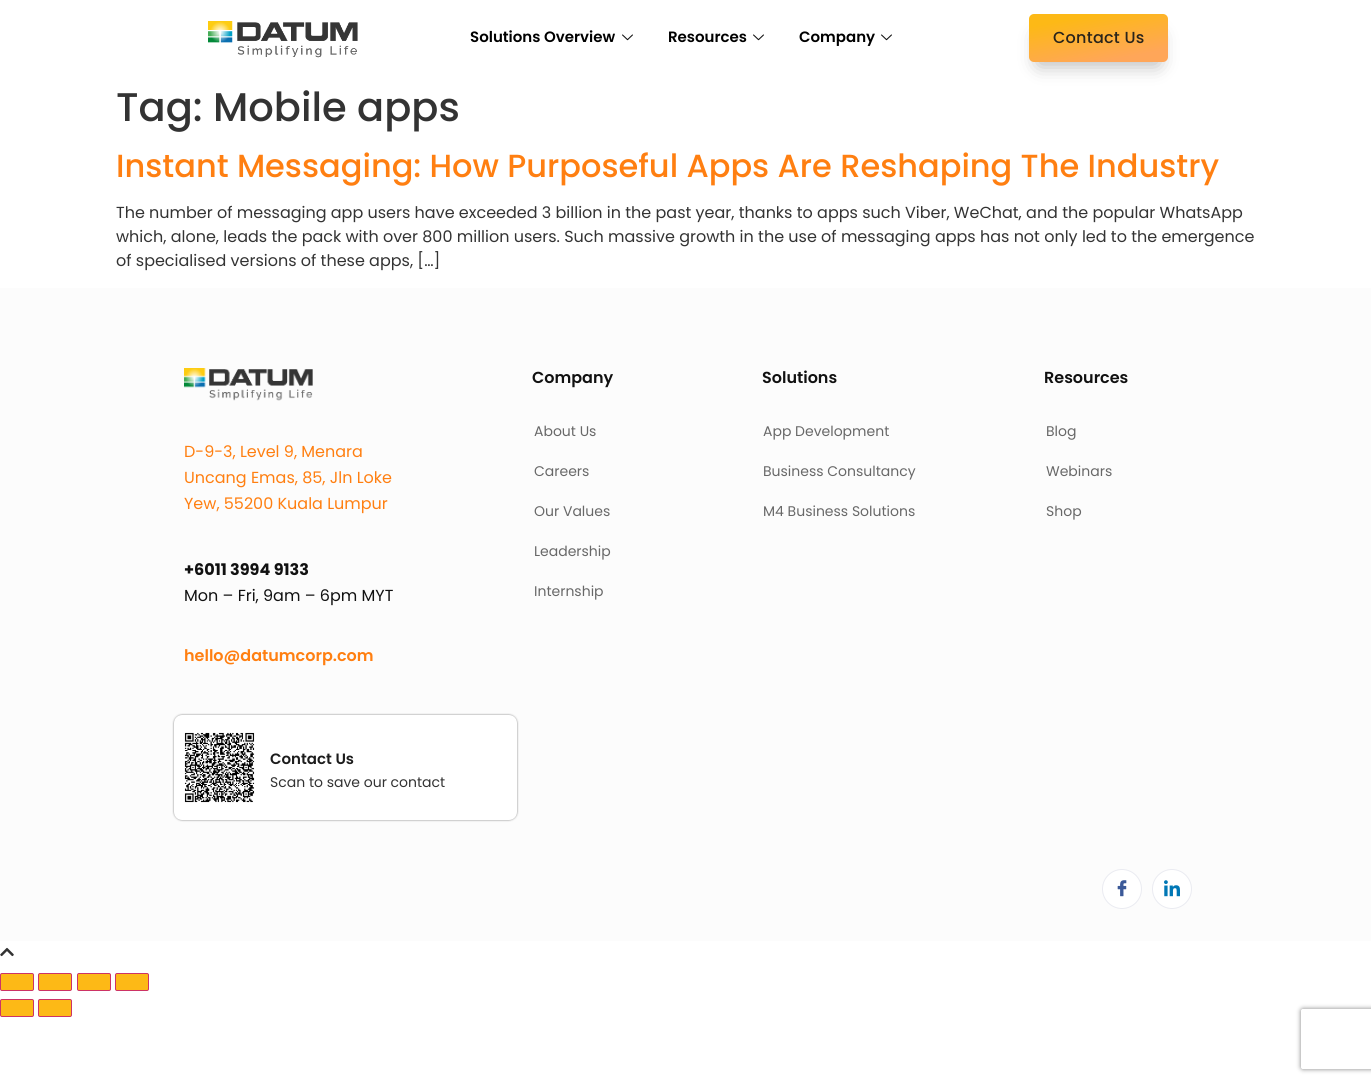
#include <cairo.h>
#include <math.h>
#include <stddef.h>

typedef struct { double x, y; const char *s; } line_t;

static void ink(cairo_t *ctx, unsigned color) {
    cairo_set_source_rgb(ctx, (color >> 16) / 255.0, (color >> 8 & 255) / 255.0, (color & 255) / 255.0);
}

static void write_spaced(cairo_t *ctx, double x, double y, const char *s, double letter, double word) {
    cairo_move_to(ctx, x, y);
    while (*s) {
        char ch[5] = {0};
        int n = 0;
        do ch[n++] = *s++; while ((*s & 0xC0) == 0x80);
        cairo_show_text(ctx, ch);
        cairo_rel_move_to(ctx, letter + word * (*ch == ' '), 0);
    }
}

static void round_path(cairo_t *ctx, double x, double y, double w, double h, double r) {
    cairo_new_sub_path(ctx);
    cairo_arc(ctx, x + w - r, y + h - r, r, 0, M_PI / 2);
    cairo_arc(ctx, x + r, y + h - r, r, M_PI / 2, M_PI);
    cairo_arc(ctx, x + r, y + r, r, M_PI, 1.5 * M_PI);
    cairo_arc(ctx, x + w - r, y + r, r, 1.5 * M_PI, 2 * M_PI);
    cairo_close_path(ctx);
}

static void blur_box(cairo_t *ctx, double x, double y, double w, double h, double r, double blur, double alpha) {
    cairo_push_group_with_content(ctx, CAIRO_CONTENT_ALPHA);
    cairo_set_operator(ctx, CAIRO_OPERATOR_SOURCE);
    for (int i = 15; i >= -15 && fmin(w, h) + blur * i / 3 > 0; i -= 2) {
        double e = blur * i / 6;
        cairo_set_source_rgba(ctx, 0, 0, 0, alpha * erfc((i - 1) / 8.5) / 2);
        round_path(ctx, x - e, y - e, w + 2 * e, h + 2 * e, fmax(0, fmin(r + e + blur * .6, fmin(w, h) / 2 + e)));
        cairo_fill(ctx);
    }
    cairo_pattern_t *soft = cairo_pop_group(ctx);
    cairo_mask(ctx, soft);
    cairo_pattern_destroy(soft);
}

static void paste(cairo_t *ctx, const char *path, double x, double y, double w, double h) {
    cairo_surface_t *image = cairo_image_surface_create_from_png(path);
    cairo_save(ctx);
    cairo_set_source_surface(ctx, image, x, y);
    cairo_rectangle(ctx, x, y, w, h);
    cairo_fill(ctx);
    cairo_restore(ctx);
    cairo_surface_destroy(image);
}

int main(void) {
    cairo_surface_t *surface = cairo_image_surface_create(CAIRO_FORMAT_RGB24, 1371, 1083);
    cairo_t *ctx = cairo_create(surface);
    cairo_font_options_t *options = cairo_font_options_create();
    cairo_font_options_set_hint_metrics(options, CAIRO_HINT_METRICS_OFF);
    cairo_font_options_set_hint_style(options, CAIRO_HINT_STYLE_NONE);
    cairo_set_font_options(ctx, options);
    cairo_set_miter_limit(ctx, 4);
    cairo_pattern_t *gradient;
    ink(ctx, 0xFFFFFF);
    cairo_paint(ctx);
    paste(ctx, "media/1.png", 208, 21, 150, 37);
    cairo_select_font_face(ctx, "Poppins SemiBold", CAIRO_FONT_SLANT_NORMAL, CAIRO_FONT_WEIGHT_NORMAL);
    cairo_set_font_size(ctx, 15);
    ink(ctx, 0x000000);
    cairo_move_to(ctx, 470, 42);
    cairo_show_text(ctx, "Solutions Overview");
    paste(ctx, "media/2.png", 622, 34, 11, 7);
    cairo_move_to(ctx, 668, 42);
    cairo_show_text(ctx, "Resources");
    paste(ctx, "media/2.png", 753, 34, 11, 7);
    cairo_move_to(ctx, 799, 42);
    cairo_show_text(ctx, "Company");
    paste(ctx, "media/2.png", 881, 34, 11, 7);
    ink(ctx, 0x000000);
    blur_box(ctx, 1039, 36, 119, 28, 0, 10, 0.32);
    gradient = cairo_pattern_create_linear(1092, 2.8, 1105, 73);
    cairo_pattern_add_color_stop_rgba(gradient, 0.17, 0.992, 0.725, 0.086, 1);
    cairo_pattern_add_color_stop_rgba(gradient, 0.84, 1, 0.651, 0.349, 1);
    cairo_set_source(ctx, gradient);
    cairo_pattern_destroy(gradient);
    round_path(ctx, 1029, 14, 139, 48, 5);
    cairo_fill(ctx);
    cairo_select_font_face(ctx, "Poppins Medium", CAIRO_FONT_SLANT_NORMAL, CAIRO_FONT_WEIGHT_NORMAL);
    cairo_set_font_size(ctx, 16);
    ink(ctx, 0x29241B);
    write_spaced(ctx, 1053, 43, "Contact Us", 0.25, 0);
    cairo_set_font_size(ctx, 40);
    ink(ctx, 0x333333);
    cairo_move_to(ctx, 116, 121);
    cairo_show_text(ctx, "Tag: Mobile apps");
    cairo_set_font_size(ctx, 32);
    ink(ctx, 0xFF7F11);
    cairo_move_to(ctx, 116, 177);
    cairo_show_text(ctx, "Instant Messaging: How Purposeful Apps Are Reshaping The Industry");
    cairo_select_font_face(ctx, "Poppins", CAIRO_FONT_SLANT_NORMAL, CAIRO_FONT_WEIGHT_NORMAL);
    cairo_set_font_size(ctx, 16);
    ink(ctx, 0x333333);
    {
        static const line_t items[] = {
            {116, 218, "The number of messaging app users have exceeded 3 billion in the past year, thanks to apps such Viber, WeChat, and the popular WhatsApp"},
            {116, 242, "which, alone, leads the pack with over 800 million users. Such massive growth in the use of messaging apps has not only led to the emergence"},
            {116, 266, "of specialised versions of these apps, […]"},
        };
        for (size_t i = 0; i < sizeof items / sizeof *items; i++) {
            cairo_move_to(ctx, items[i].x, items[i].y);
            cairo_show_text(ctx, items[i].s);
        }
    }
    ink(ctx, 0xFCFCFC);
    cairo_rectangle(ctx, 0, 288, 1371, 653);
    cairo_fill(ctx);
    paste(ctx, "media/3.png", 184, 368, 129, 33);
    ink(ctx, 0xFF7F11);
    {
        static const line_t items[] = {
            {184, 457, "D-9-3, Level 9, Menara"},
            {184, 483, "Uncang Emas, 85, Jln Loke"},
            {184, 509, "Yew, 55200 Kuala Lumpur"},
        };
        for (size_t i = 0; i < sizeof items / sizeof *items; i++) {
            cairo_move_to(ctx, items[i].x, items[i].y);
            cairo_show_text(ctx, items[i].s);
        }
    }
    cairo_select_font_face(ctx, "Poppins", CAIRO_FONT_SLANT_NORMAL, CAIRO_FONT_WEIGHT_BOLD);
    ink(ctx, 0x111111);
    cairo_move_to(ctx, 184, 575);
    cairo_show_text(ctx, "+6011 3994 9133");
    cairo_select_font_face(ctx, "Poppins", CAIRO_FONT_SLANT_NORMAL, CAIRO_FONT_WEIGHT_NORMAL);
    cairo_move_to(ctx, 184, 601);
    cairo_show_text(ctx, "Mon – Fri, 9am – 6pm MYT");
    cairo_select_font_face(ctx, "Poppins SemiBold", CAIRO_FONT_SLANT_NORMAL, CAIRO_FONT_WEIGHT_NORMAL);
    ink(ctx, 0xFF7F11);
    cairo_move_to(ctx, 184, 661);
    cairo_show_text(ctx, "hello@datumcorp.com");
    ink(ctx, 0x111111);
    cairo_move_to(ctx, 532, 383);
    cairo_show_text(ctx, "Company");
    cairo_select_font_face(ctx, "Poppins", CAIRO_FONT_SLANT_NORMAL, CAIRO_FONT_WEIGHT_NORMAL);
    cairo_set_font_size(ctx, 14);
    ink(ctx, 0x686868);
    {
        static const line_t items[] = {
            {534, 436, "About Us"},
            {534, 476, "Careers"},
            {534, 516, "Our Values"},
            {534, 556, "Leadership"},
            {534, 596, "Internship"},
        };
        for (size_t i = 0; i < sizeof items / sizeof *items; i++) {
            cairo_move_to(ctx, items[i].x, items[i].y);
            cairo_show_text(ctx, items[i].s);
        }
    }
    cairo_select_font_face(ctx, "Poppins SemiBold", CAIRO_FONT_SLANT_NORMAL, CAIRO_FONT_WEIGHT_NORMAL);
    cairo_set_font_size(ctx, 16);
    ink(ctx, 0x111111);
    cairo_move_to(ctx, 762, 383);
    cairo_show_text(ctx, "Solutions");
    cairo_select_font_face(ctx, "Poppins", CAIRO_FONT_SLANT_NORMAL, CAIRO_FONT_WEIGHT_NORMAL);
    cairo_set_font_size(ctx, 14);
    ink(ctx, 0x686868);
    {
        static const line_t items[] = {
            {763, 436, "App Development"},
            {763, 476, "Business Consultancy"},
            {763, 516, "M4 Business Solutions"},
        };
        for (size_t i = 0; i < sizeof items / sizeof *items; i++) {
            cairo_move_to(ctx, items[i].x, items[i].y);
            cairo_show_text(ctx, items[i].s);
        }
    }
    cairo_select_font_face(ctx, "Poppins SemiBold", CAIRO_FONT_SLANT_NORMAL, CAIRO_FONT_WEIGHT_NORMAL);
    cairo_set_font_size(ctx, 16);
    ink(ctx, 0x111111);
    cairo_move_to(ctx, 1044, 383);
    cairo_show_text(ctx, "Resources");
    cairo_select_font_face(ctx, "Poppins", CAIRO_FONT_SLANT_NORMAL, CAIRO_FONT_WEIGHT_NORMAL);
    cairo_set_font_size(ctx, 14);
    ink(ctx, 0x686868);
    {
        static const line_t items[] = {
            {1046, 436, "Blog"},
            {1046, 476, "Webinars"},
            {1046, 516, "Shop"},
        };
        for (size_t i = 0; i < sizeof items / sizeof *items; i++) {
            cairo_move_to(ctx, items[i].x, items[i].y);
            cairo_show_text(ctx, items[i].s);
        }
    }
    ink(ctx, 0x000000);
    blur_box(ctx, 174, 715, 343, 105, 8, 1, 0.5);
    ink(ctx, 0xFFFFFF);
    round_path(ctx, 174, 715, 343, 105, 8);
    cairo_fill(ctx);
    paste(ctx, "media/4.png", 184, 732, 71, 71);
    cairo_select_font_face(ctx, "Poppins SemiBold", CAIRO_FONT_SLANT_NORMAL, CAIRO_FONT_WEIGHT_NORMAL);
    cairo_set_font_size(ctx, 15);
    ink(ctx, 0x1C1C1C);
    cairo_move_to(ctx, 270, 764);
    cairo_show_text(ctx, "Contact Us");
    cairo_select_font_face(ctx, "Poppins", CAIRO_FONT_SLANT_NORMAL, CAIRO_FONT_WEIGHT_NORMAL);
    cairo_set_font_size(ctx, 14);
    ink(ctx, 0x333333);
    cairo_move_to(ctx, 270, 787);
    cairo_show_text(ctx, "Scan to save our contact");
    ink(ctx, 0xFFFFFF);
    cairo_new_path(ctx);
    cairo_arc(ctx, 1122, 889, 19.5, 0, 2 * M_PI);
    cairo_fill_preserve(ctx);
    ink(ctx, 0xEAEBF1);
    cairo_set_line_width(ctx, 1);
    cairo_stroke(ctx);
    paste(ctx, "media/5.png", 1117, 880, 10, 17);
    ink(ctx, 0xFFFFFF);
    cairo_arc(ctx, 1172, 889, 19.5, 0, 2 * M_PI);
    cairo_fill_preserve(ctx);
    ink(ctx, 0xEAEBF1);
    cairo_stroke(ctx);
    paste(ctx, "media/6.png", 1164, 880, 16, 17);
    paste(ctx, "media/7.png", 0, 947, 14, 10);
    ink(ctx, 0xFDB916);
    round_path(ctx, 0.5, 973.5, 33, 17, 1.5);
    cairo_fill_preserve(ctx);
    ink(ctx, 0xCC3366);
    cairo_stroke(ctx);
    ink(ctx, 0xFDB916);
    round_path(ctx, 38.5, 973.5, 33, 17, 1.5);
    cairo_fill_preserve(ctx);
    ink(ctx, 0xCC3366);
    cairo_stroke(ctx);
    ink(ctx, 0xFDB916);
    round_path(ctx, 77.5, 973.5, 33, 17, 1.5);
    cairo_fill_preserve(ctx);
    ink(ctx, 0xCC3366);
    cairo_stroke(ctx);
    ink(ctx, 0xFDB916);
    round_path(ctx, 115.5, 973.5, 33, 17, 1.5);
    cairo_fill_preserve(ctx);
    ink(ctx, 0xCC3366);
    cairo_stroke(ctx);
    ink(ctx, 0xFDB916);
    round_path(ctx, 0.5, 999.5, 33, 17, 1.5);
    cairo_fill_preserve(ctx);
    ink(ctx, 0xCC3366);
    cairo_stroke(ctx);
    ink(ctx, 0xFDB916);
    round_path(ctx, 38.5, 999.5, 33, 17, 1.5);
    cairo_fill_preserve(ctx);
    ink(ctx, 0xCC3366);
    cairo_stroke(ctx);
    cairo_save(ctx);
    cairo_set_fill_rule(ctx, CAIRO_FILL_RULE_EVEN_ODD);
    cairo_new_path(ctx);
    cairo_move_to(ctx, 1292, 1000);
    cairo_line_to(ctx, 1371, 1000);
    cairo_line_to(ctx, 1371, 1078);
    cairo_line_to(ctx, 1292, 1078);
    cairo_close_path(ctx);
    cairo_move_to(ctx, 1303, 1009);
    cairo_line_to(ctx, 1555, 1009);
    cairo_curve_to(ctx, 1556, 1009, 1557, 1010, 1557, 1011);
    cairo_line_to(ctx, 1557, 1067);
    cairo_curve_to(ctx, 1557, 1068, 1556, 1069, 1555, 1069);
    cairo_line_to(ctx, 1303, 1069);
    cairo_curve_to(ctx, 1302, 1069, 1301, 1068, 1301, 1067);
    cairo_line_to(ctx, 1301, 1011);
    cairo_curve_to(ctx, 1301, 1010, 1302, 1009, 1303, 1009);
    cairo_close_path(ctx);
    cairo_clip(ctx);
    ink(ctx, 0x808080);
    blur_box(ctx, 1301, 1009, 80, 60, 2, 2.5, 1);
    cairo_restore(ctx);
    cairo_surface_write_to_png(surface, "image.png");
    cairo_font_options_destroy(options);
    cairo_destroy(ctx);
    cairo_surface_destroy(surface);
    return 0;
}
